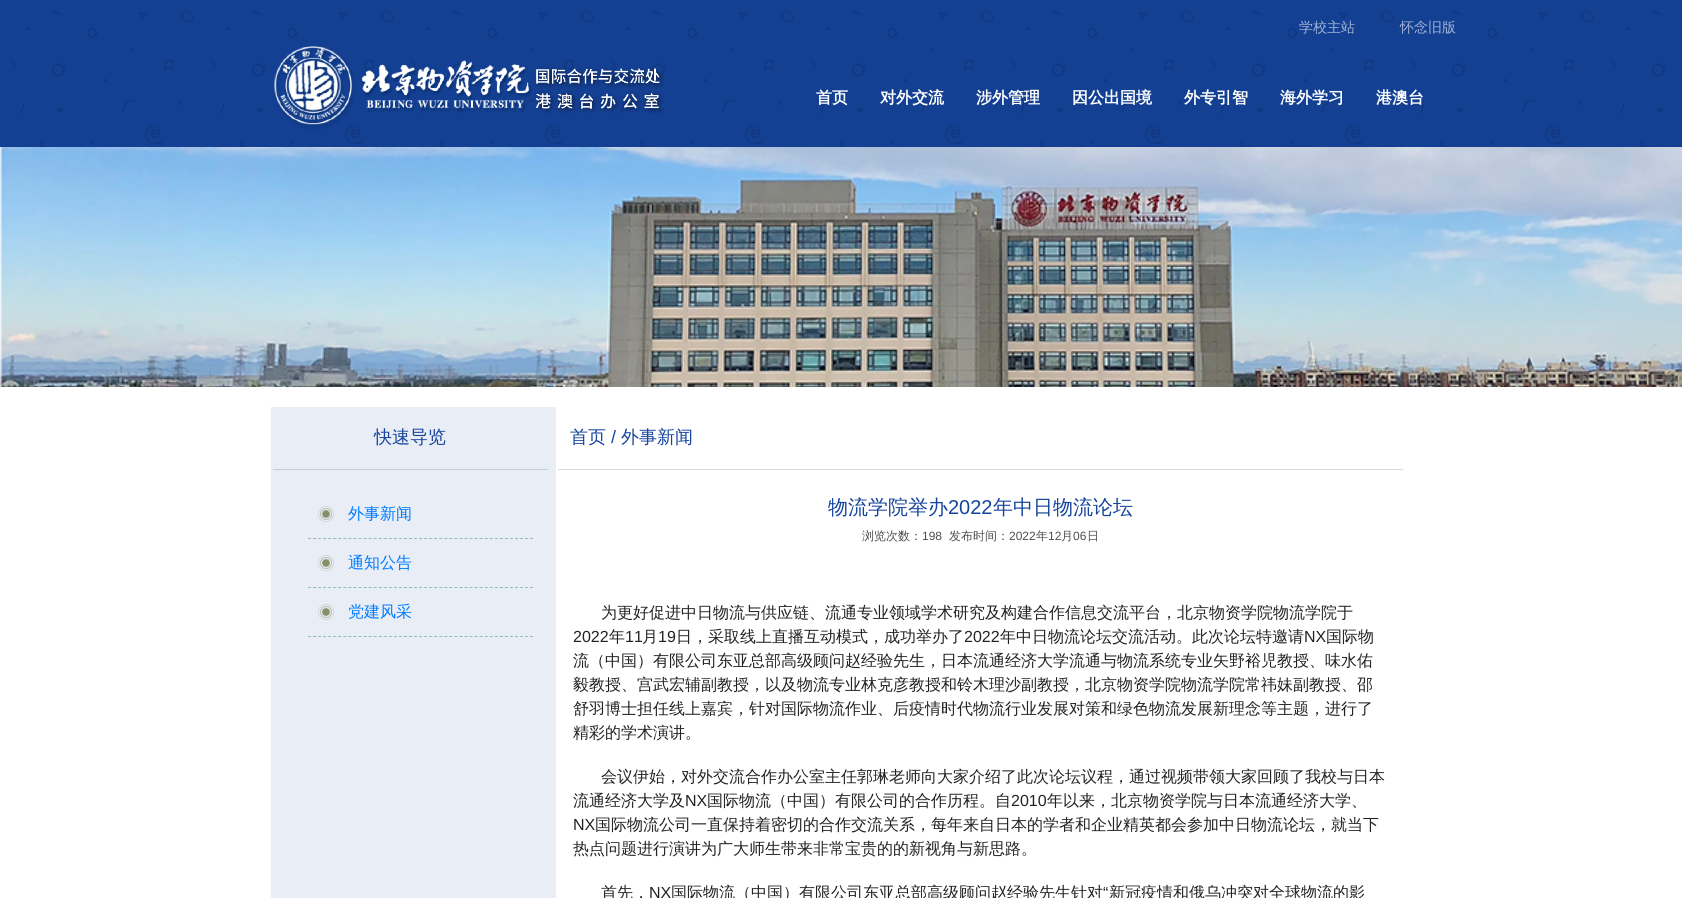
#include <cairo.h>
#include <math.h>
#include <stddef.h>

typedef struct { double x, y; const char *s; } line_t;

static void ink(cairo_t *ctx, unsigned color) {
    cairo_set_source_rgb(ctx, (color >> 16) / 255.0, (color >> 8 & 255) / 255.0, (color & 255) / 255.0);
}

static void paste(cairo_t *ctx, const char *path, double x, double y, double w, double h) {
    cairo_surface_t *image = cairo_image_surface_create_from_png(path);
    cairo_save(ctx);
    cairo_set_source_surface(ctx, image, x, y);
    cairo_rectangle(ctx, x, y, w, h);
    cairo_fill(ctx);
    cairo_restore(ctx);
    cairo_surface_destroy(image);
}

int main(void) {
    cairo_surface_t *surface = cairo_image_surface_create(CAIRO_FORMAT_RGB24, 1682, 898);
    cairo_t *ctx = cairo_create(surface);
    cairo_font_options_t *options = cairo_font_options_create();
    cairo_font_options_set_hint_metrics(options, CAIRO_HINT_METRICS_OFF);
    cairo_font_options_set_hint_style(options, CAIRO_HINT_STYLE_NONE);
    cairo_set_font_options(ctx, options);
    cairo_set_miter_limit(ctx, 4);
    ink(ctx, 0xFFFFFF);
    cairo_paint(ctx);
    ink(ctx, 0x15449C);
    cairo_rectangle(ctx, 0, 0, 1682, 147);
    cairo_fill(ctx);
    paste(ctx, "media/1.png", 0, 0, 1682, 147);
    cairo_select_font_face(ctx, "WenQuanYi Zen Hei Medium", CAIRO_FONT_SLANT_NORMAL, CAIRO_FONT_WEIGHT_NORMAL);
    cairo_set_font_size(ctx, 14);
    ink(ctx, 0xA1B3D4);
    cairo_move_to(ctx, 1299, 32);
    cairo_show_text(ctx, "学校主站");
    cairo_move_to(ctx, 1400, 32);
    cairo_show_text(ctx, "怀念旧版");
    paste(ctx, "media/2.png", 273, 46, 392, 84);
    cairo_select_font_face(ctx, "WenQuanYi Zen Hei", CAIRO_FONT_SLANT_NORMAL, CAIRO_FONT_WEIGHT_BOLD);
    cairo_set_font_size(ctx, 16);
    ink(ctx, 0xFFFFFF);
    {
        static const line_t items[] = {
            {816, 103, "首页"},
            {880, 103, "对外交流"},
            {976, 103, "涉外管理"},
            {1072, 103, "因公出国境"},
            {1184, 103, "外专引智"},
            {1280, 103, "海外学习"},
            {1376, 103, "港澳台"},
        };
        for (size_t i = 0; i < sizeof items / sizeof *items; i++) {
            cairo_move_to(ctx, items[i].x, items[i].y);
            cairo_show_text(ctx, items[i].s);
        }
    }
    paste(ctx, "media/3.png", 0, 147, 1682, 240);
    ink(ctx, 0xE8EDF6);
    cairo_rectangle(ctx, 271, 407, 285, 491);
    cairo_fill(ctx);
    cairo_select_font_face(ctx, "WenQuanYi Zen Hei Medium", CAIRO_FONT_SLANT_NORMAL, CAIRO_FONT_WEIGHT_NORMAL);
    cairo_set_font_size(ctx, 18);
    ink(ctx, 0x15449C);
    cairo_move_to(ctx, 374, 443);
    cairo_show_text(ctx, "快速导览");
    ink(ctx, 0xC2CFD8);
    cairo_rectangle(ctx, 273, 469, 275, 1);
    cairo_fill(ctx);
    paste(ctx, "media/4.png", 318, 506, 16, 16);
    cairo_new_path(ctx);
    cairo_move_to(ctx, 308, 538.5);
    cairo_line_to(ctx, 533, 538.5);
    ink(ctx, 0x94B8C2);
    cairo_set_line_width(ctx, 1);
    cairo_set_dash(ctx, (double[]){3, 2.05}, 2, 0);
    cairo_stroke(ctx);
    cairo_set_font_size(ctx, 16);
    ink(ctx, 0x007BFF);
    cairo_move_to(ctx, 348, 519);
    cairo_show_text(ctx, "外事新闻");
    paste(ctx, "media/4.png", 318, 555, 16, 16);
    cairo_new_path(ctx);
    cairo_move_to(ctx, 308, 587.5);
    cairo_line_to(ctx, 533, 587.5);
    ink(ctx, 0x94B8C2);
    cairo_stroke(ctx);
    ink(ctx, 0x007BFF);
    cairo_move_to(ctx, 348, 568);
    cairo_show_text(ctx, "通知公告");
    paste(ctx, "media/4.png", 318, 604, 16, 16);
    cairo_new_path(ctx);
    cairo_move_to(ctx, 308, 636.5);
    cairo_line_to(ctx, 533, 636.5);
    ink(ctx, 0x94B8C2);
    cairo_stroke(ctx);
    ink(ctx, 0x007BFF);
    cairo_move_to(ctx, 348, 617);
    cairo_show_text(ctx, "党建风采");
    cairo_set_font_size(ctx, 18);
    ink(ctx, 0x15449C);
    cairo_move_to(ctx, 570, 443);
    cairo_show_text(ctx, "首页");
    cairo_select_font_face(ctx, "Liberation Sans", CAIRO_FONT_SLANT_NORMAL, CAIRO_FONT_WEIGHT_NORMAL);
    cairo_move_to(ctx, 611, 443);
    cairo_show_text(ctx, "/");
    cairo_select_font_face(ctx, "WenQuanYi Zen Hei Medium", CAIRO_FONT_SLANT_NORMAL, CAIRO_FONT_WEIGHT_NORMAL);
    cairo_move_to(ctx, 621, 443);
    cairo_show_text(ctx, "外事新闻");
    ink(ctx, 0xD5DDDF);
    cairo_rectangle(ctx, 558, 469, 845, 1);
    cairo_fill(ctx);
    cairo_set_font_size(ctx, 20);
    ink(ctx, 0x15449C);
    cairo_move_to(ctx, 828, 514);
    cairo_show_text(ctx, "物流学院举办");
    cairo_select_font_face(ctx, "Liberation Sans", CAIRO_FONT_SLANT_NORMAL, CAIRO_FONT_WEIGHT_NORMAL);
    cairo_move_to(ctx, 948, 514);
    cairo_show_text(ctx, "2022");
    cairo_select_font_face(ctx, "WenQuanYi Zen Hei Medium", CAIRO_FONT_SLANT_NORMAL, CAIRO_FONT_WEIGHT_NORMAL);
    cairo_move_to(ctx, 993, 514);
    cairo_show_text(ctx, "年中日物流论坛");
    cairo_set_font_size(ctx, 12);
    ink(ctx, 0x4D4D4D);
    cairo_move_to(ctx, 862, 540);
    cairo_show_text(ctx, "浏览次数：");
    cairo_select_font_face(ctx, "Liberation Sans", CAIRO_FONT_SLANT_NORMAL, CAIRO_FONT_WEIGHT_NORMAL);
    cairo_move_to(ctx, 922, 540);
    cairo_show_text(ctx, "198");
    cairo_select_font_face(ctx, "WenQuanYi Zen Hei Medium", CAIRO_FONT_SLANT_NORMAL, CAIRO_FONT_WEIGHT_NORMAL);
    cairo_move_to(ctx, 949, 540);
    cairo_show_text(ctx, "发布时间：");
    cairo_select_font_face(ctx, "Liberation Sans", CAIRO_FONT_SLANT_NORMAL, CAIRO_FONT_WEIGHT_NORMAL);
    cairo_move_to(ctx, 1009, 540);
    cairo_show_text(ctx, "2022");
    cairo_select_font_face(ctx, "WenQuanYi Zen Hei Medium", CAIRO_FONT_SLANT_NORMAL, CAIRO_FONT_WEIGHT_NORMAL);
    cairo_move_to(ctx, 1036, 540);
    cairo_show_text(ctx, "年");
    cairo_select_font_face(ctx, "Liberation Sans", CAIRO_FONT_SLANT_NORMAL, CAIRO_FONT_WEIGHT_NORMAL);
    cairo_move_to(ctx, 1048, 540);
    cairo_show_text(ctx, "12");
    cairo_select_font_face(ctx, "WenQuanYi Zen Hei Medium", CAIRO_FONT_SLANT_NORMAL, CAIRO_FONT_WEIGHT_NORMAL);
    cairo_move_to(ctx, 1061, 540);
    cairo_show_text(ctx, "月");
    cairo_select_font_face(ctx, "Liberation Sans", CAIRO_FONT_SLANT_NORMAL, CAIRO_FONT_WEIGHT_NORMAL);
    cairo_move_to(ctx, 1073, 540);
    cairo_show_text(ctx, "06");
    cairo_select_font_face(ctx, "WenQuanYi Zen Hei Medium", CAIRO_FONT_SLANT_NORMAL, CAIRO_FONT_WEIGHT_NORMAL);
    cairo_move_to(ctx, 1087, 540);
    cairo_show_text(ctx, "日");
    cairo_set_font_size(ctx, 16);
    ink(ctx, 0x222222);
    cairo_move_to(ctx, 601, 618);
    cairo_show_text(ctx, "为更好促进中日物流与供应链、流通专业领域学术研究及构建合作信息交流平台，北京物资学院物流学院于");
    cairo_select_font_face(ctx, "Liberation Sans", CAIRO_FONT_SLANT_NORMAL, CAIRO_FONT_WEIGHT_NORMAL);
    cairo_move_to(ctx, 573, 642);
    cairo_show_text(ctx, "2022");
    cairo_select_font_face(ctx, "WenQuanYi Zen Hei Medium", CAIRO_FONT_SLANT_NORMAL, CAIRO_FONT_WEIGHT_NORMAL);
    cairo_move_to(ctx, 609, 642);
    cairo_show_text(ctx, "年");
    cairo_select_font_face(ctx, "Liberation Sans", CAIRO_FONT_SLANT_NORMAL, CAIRO_FONT_WEIGHT_NORMAL);
    cairo_move_to(ctx, 625, 642);
    cairo_show_text(ctx, "11");
    cairo_select_font_face(ctx, "WenQuanYi Zen Hei Medium", CAIRO_FONT_SLANT_NORMAL, CAIRO_FONT_WEIGHT_NORMAL);
    cairo_move_to(ctx, 642, 642);
    cairo_show_text(ctx, "月");
    cairo_select_font_face(ctx, "Liberation Sans", CAIRO_FONT_SLANT_NORMAL, CAIRO_FONT_WEIGHT_NORMAL);
    cairo_move_to(ctx, 658, 642);
    cairo_show_text(ctx, "19");
    cairo_select_font_face(ctx, "WenQuanYi Zen Hei Medium", CAIRO_FONT_SLANT_NORMAL, CAIRO_FONT_WEIGHT_NORMAL);
    cairo_move_to(ctx, 676, 642);
    cairo_show_text(ctx, "日，采取线上直播互动模式，成功举办了");
    cairo_select_font_face(ctx, "Liberation Sans", CAIRO_FONT_SLANT_NORMAL, CAIRO_FONT_WEIGHT_NORMAL);
    cairo_move_to(ctx, 964, 642);
    cairo_show_text(ctx, "2022");
    cairo_select_font_face(ctx, "WenQuanYi Zen Hei Medium", CAIRO_FONT_SLANT_NORMAL, CAIRO_FONT_WEIGHT_NORMAL);
    cairo_move_to(ctx, 1000, 642);
    cairo_show_text(ctx, "年中日物流论坛交流活动。此次论坛特邀请");
    cairo_select_font_face(ctx, "Liberation Sans", CAIRO_FONT_SLANT_NORMAL, CAIRO_FONT_WEIGHT_NORMAL);
    cairo_move_to(ctx, 1304, 642);
    cairo_show_text(ctx, "NX");
    cairo_select_font_face(ctx, "WenQuanYi Zen Hei Medium", CAIRO_FONT_SLANT_NORMAL, CAIRO_FONT_WEIGHT_NORMAL);
    {
        static const line_t items[] = {
            {1326, 642, "国际物"},
            {573, 666, "流（中国）有限公司东亚总部高级顾问赵经验先生，日本流通经济大学流通与物流系统专业矢野裕児教授、味水佑"},
            {573, 690, "毅教授、宫武宏辅副教授，以及物流专业林克彦教授和铃木理沙副教授，北京物资学院物流学院常祎妹副教授、邵"},
            {573, 714, "舒羽博士担任线上嘉宾，针对国际物流作业、后疫情时代物流行业发展对策和绿色物流发展新理念等主题，进行了"},
            {573, 738, "精彩的学术演讲。"},
            {601, 782, "会议伊始，对外交流合作办公室主任郭琳老师向大家介绍了此次论坛议程，通过视频带领大家回顾了我校与日本"},
            {573, 806, "流通经济大学及"},
        };
        for (size_t i = 0; i < sizeof items / sizeof *items; i++) {
            cairo_move_to(ctx, items[i].x, items[i].y);
            cairo_show_text(ctx, items[i].s);
        }
    }
    cairo_select_font_face(ctx, "Liberation Sans", CAIRO_FONT_SLANT_NORMAL, CAIRO_FONT_WEIGHT_NORMAL);
    cairo_move_to(ctx, 685, 806);
    cairo_show_text(ctx, "NX");
    cairo_select_font_face(ctx, "WenQuanYi Zen Hei Medium", CAIRO_FONT_SLANT_NORMAL, CAIRO_FONT_WEIGHT_NORMAL);
    cairo_move_to(ctx, 707, 806);
    cairo_show_text(ctx, "国际物流（中国）有限公司的合作历程。自");
    cairo_select_font_face(ctx, "Liberation Sans", CAIRO_FONT_SLANT_NORMAL, CAIRO_FONT_WEIGHT_NORMAL);
    cairo_move_to(ctx, 1011, 806);
    cairo_show_text(ctx, "2010");
    cairo_select_font_face(ctx, "WenQuanYi Zen Hei Medium", CAIRO_FONT_SLANT_NORMAL, CAIRO_FONT_WEIGHT_NORMAL);
    cairo_move_to(ctx, 1047, 806);
    cairo_show_text(ctx, "年以来，北京物资学院与日本流通经济大学、");
    cairo_select_font_face(ctx, "Liberation Sans", CAIRO_FONT_SLANT_NORMAL, CAIRO_FONT_WEIGHT_NORMAL);
    cairo_move_to(ctx, 573, 830);
    cairo_show_text(ctx, "NX");
    cairo_select_font_face(ctx, "WenQuanYi Zen Hei Medium", CAIRO_FONT_SLANT_NORMAL, CAIRO_FONT_WEIGHT_NORMAL);
    {
        static const line_t items[] = {
            {595, 830, "国际物流公司一直保持着密切的合作交流关系，每年来自日本的学者和企业精英都会参加中日物流论坛，就当下"},
            {573, 854, "热点问题进行演讲为广大师生带来非常宝贵的的新视角与新思路。"},
            {601, 898, "首先，"},
        };
        for (size_t i = 0; i < sizeof items / sizeof *items; i++) {
            cairo_move_to(ctx, items[i].x, items[i].y);
            cairo_show_text(ctx, items[i].s);
        }
    }
    cairo_select_font_face(ctx, "Liberation Sans", CAIRO_FONT_SLANT_NORMAL, CAIRO_FONT_WEIGHT_NORMAL);
    cairo_move_to(ctx, 649, 898);
    cairo_show_text(ctx, "NX");
    cairo_select_font_face(ctx, "WenQuanYi Zen Hei Medium", CAIRO_FONT_SLANT_NORMAL, CAIRO_FONT_WEIGHT_NORMAL);
    cairo_move_to(ctx, 671, 898);
    cairo_show_text(ctx, "国际物流（中国）有限公司东亚总部高级顾问赵经验先生针对");
    cairo_select_font_face(ctx, "Liberation Sans", CAIRO_FONT_SLANT_NORMAL, CAIRO_FONT_WEIGHT_NORMAL);
    cairo_move_to(ctx, 1103, 898);
    cairo_show_text(ctx, "“");
    cairo_select_font_face(ctx, "WenQuanYi Zen Hei Medium", CAIRO_FONT_SLANT_NORMAL, CAIRO_FONT_WEIGHT_NORMAL);
    cairo_move_to(ctx, 1109, 898);
    cairo_show_text(ctx, "新冠疫情和俄乌冲突对全球物流的影");
    cairo_surface_write_to_png(surface, "image.png");
    cairo_font_options_destroy(options);
    cairo_destroy(ctx);
    cairo_surface_destroy(surface);
    return 0;
}
